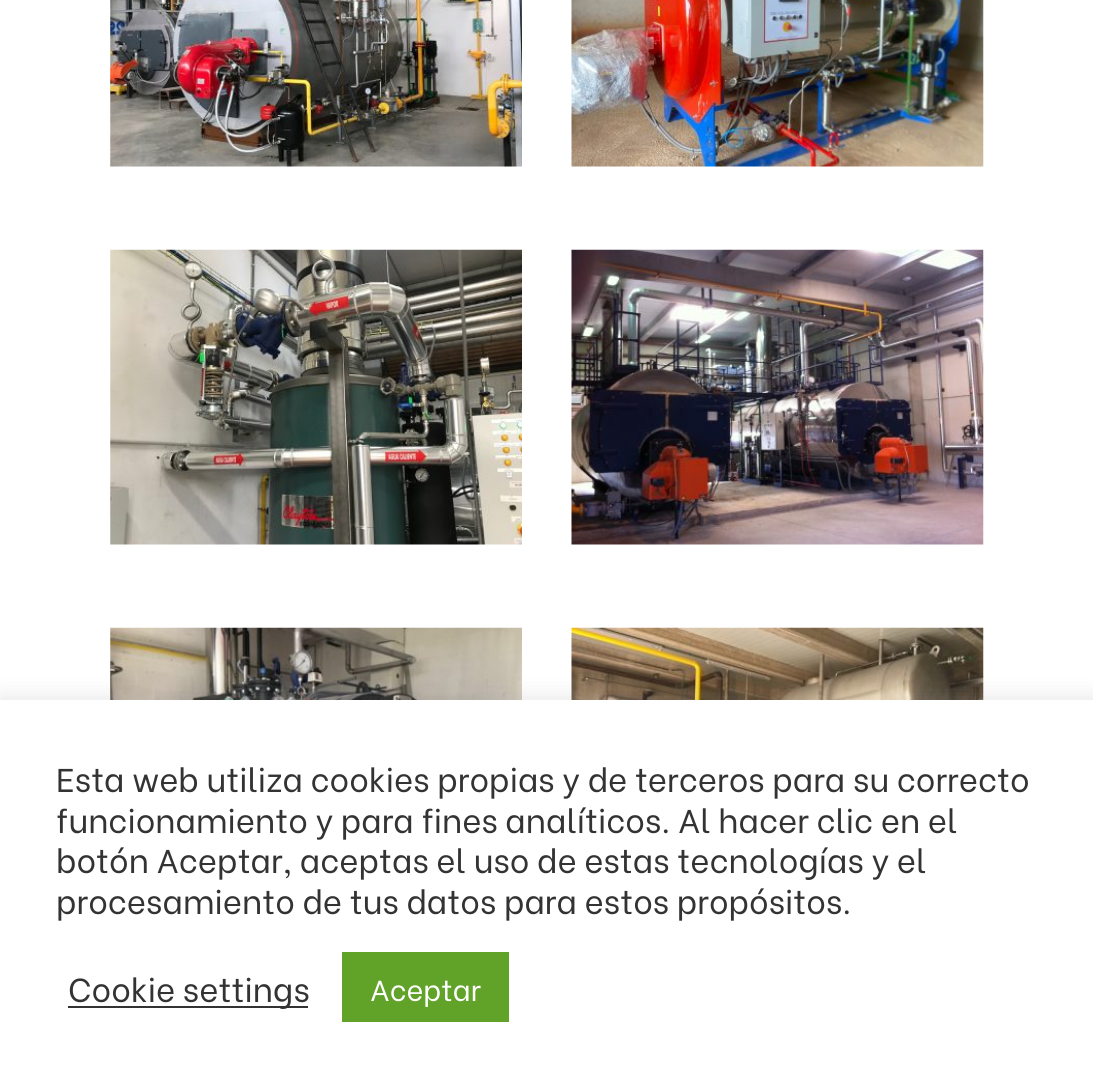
#include <cairo.h>
#include <math.h>
#include <stddef.h>

typedef struct { double x, y; const char *s; } line_t;

static void ink(cairo_t *ctx, unsigned color) {
    cairo_set_source_rgb(ctx, (color >> 16) / 255.0, (color >> 8 & 255) / 255.0, (color & 255) / 255.0);
}

static void round_path(cairo_t *ctx, double x, double y, double w, double h, double r) {
    cairo_new_sub_path(ctx);
    cairo_arc(ctx, x + w - r, y + h - r, r, 0, M_PI / 2);
    cairo_arc(ctx, x + r, y + h - r, r, M_PI / 2, M_PI);
    cairo_arc(ctx, x + r, y + r, r, M_PI, 1.5 * M_PI);
    cairo_arc(ctx, x + w - r, y + r, r, 1.5 * M_PI, 2 * M_PI);
    cairo_close_path(ctx);
}

static void blur_box(cairo_t *ctx, double x, double y, double w, double h, double r, double blur, double alpha) {
    cairo_push_group_with_content(ctx, CAIRO_CONTENT_ALPHA);
    cairo_set_operator(ctx, CAIRO_OPERATOR_SOURCE);
    for (int i = 15; i >= -15 && fmin(w, h) + blur * i / 3 > 0; i -= 2) {
        double e = blur * i / 6;
        cairo_set_source_rgba(ctx, 0, 0, 0, alpha * erfc((i - 1) / 8.5) / 2);
        round_path(ctx, x - e, y - e, w + 2 * e, h + 2 * e, fmax(0, fmin(r + e + blur * .6, fmin(w, h) / 2 + e)));
        cairo_fill(ctx);
    }
    cairo_pattern_t *soft = cairo_pop_group(ctx);
    cairo_mask(ctx, soft);
    cairo_pattern_destroy(soft);
}

static void paste(cairo_t *ctx, const char *path, double x, double y, double w, double h) {
    cairo_surface_t *image = cairo_image_surface_create_from_png(path);
    cairo_save(ctx);
    cairo_set_source_surface(ctx, image, x, y);
    cairo_rectangle(ctx, x, y, w, h);
    cairo_fill(ctx);
    cairo_restore(ctx);
    cairo_surface_destroy(image);
}

int main(void) {
    cairo_surface_t *surface = cairo_image_surface_create(CAIRO_FORMAT_RGB24, 1093, 1087);
    cairo_t *ctx = cairo_create(surface);
    cairo_font_options_t *options = cairo_font_options_create();
    cairo_font_options_set_hint_metrics(options, CAIRO_HINT_METRICS_OFF);
    cairo_font_options_set_hint_style(options, CAIRO_HINT_STYLE_NONE);
    cairo_set_font_options(ctx, options);
    cairo_set_miter_limit(ctx, 4);
    ink(ctx, 0xFFFFFF);
    cairo_paint(ctx);
    paste(ctx, "media/1.png", 110, 0, 412, 167);
    paste(ctx, "media/2.png", 571, 0, 413, 167);
    paste(ctx, "media/3.png", 110, 249, 412, 296);
    paste(ctx, "media/4.png", 571, 249, 413, 296);
    paste(ctx, "media/5.png", 110, 627, 412, 73);
    paste(ctx, "media/6.png", 571, 627, 413, 73);
    ink(ctx, 0xACABAB);
    blur_box(ctx, 0, 698, 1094, 389, 0, 11, 0.3);
    ink(ctx, 0xFFFFFF);
    cairo_rectangle(ctx, 0, 700, 1093, 387);
    cairo_fill(ctx);
    cairo_select_font_face(ctx, "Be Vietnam", CAIRO_FONT_SLANT_NORMAL, CAIRO_FONT_WEIGHT_NORMAL);
    cairo_set_font_size(ctx, 33);
    ink(ctx, 0x333333);
    {
        static const line_t items[] = {
            {56, 792, "Esta web utiliza cookies propias y de terceros para su correcto"},
            {56, 833, "funcionamiento y para fines analíticos. Al hacer clic en el"},
            {56, 873, "botón Aceptar, aceptas el uso de estas tecnologías y el"},
            {56, 914, "procesamiento de tus datos para estos propósitos."},
        };
        for (size_t i = 0; i < sizeof items / sizeof *items; i++) {
            cairo_move_to(ctx, items[i].x, items[i].y);
            cairo_show_text(ctx, items[i].s);
        }
    }
    cairo_rectangle(ctx, 68, 1006, 240, 2);
    cairo_fill(ctx);
    cairo_move_to(ctx, 68, 1002);
    cairo_show_text(ctx, "Cookie settings");
    ink(ctx, 0x61A229);
    cairo_rectangle(ctx, 342, 952, 167, 70);
    cairo_fill(ctx);
    cairo_set_font_size(ctx, 29);
    ink(ctx, 0xFFFFFF);
    cairo_move_to(ctx, 370, 1001);
    cairo_show_text(ctx, "Aceptar");
    cairo_surface_write_to_png(surface, "image.png");
    cairo_font_options_destroy(options);
    cairo_destroy(ctx);
    cairo_surface_destroy(surface);
    return 0;
}
